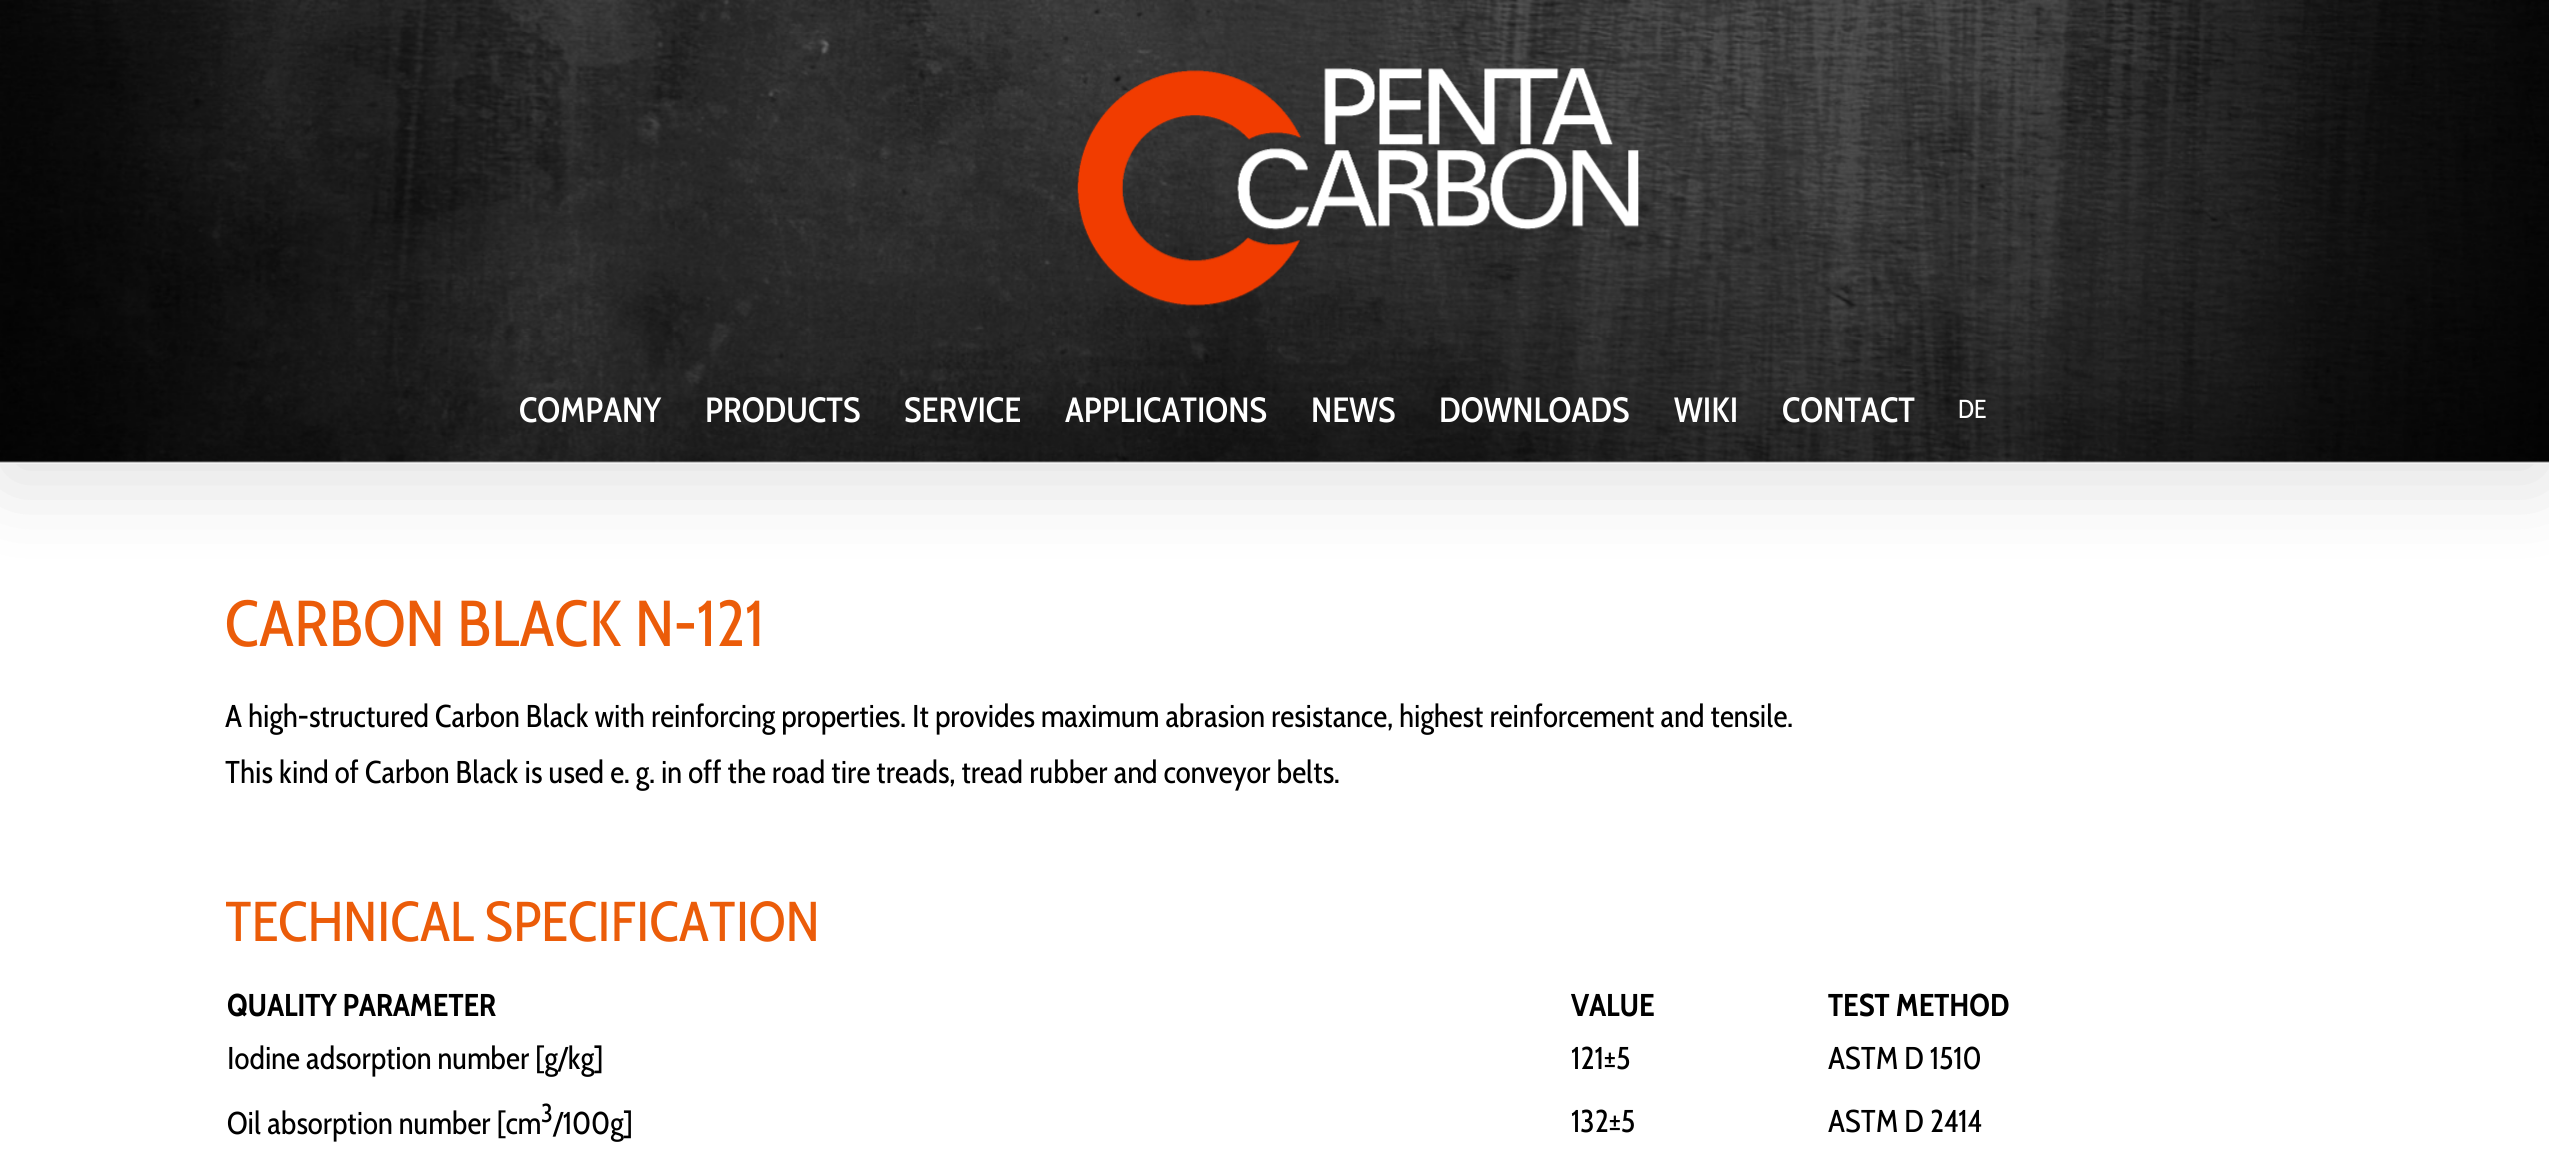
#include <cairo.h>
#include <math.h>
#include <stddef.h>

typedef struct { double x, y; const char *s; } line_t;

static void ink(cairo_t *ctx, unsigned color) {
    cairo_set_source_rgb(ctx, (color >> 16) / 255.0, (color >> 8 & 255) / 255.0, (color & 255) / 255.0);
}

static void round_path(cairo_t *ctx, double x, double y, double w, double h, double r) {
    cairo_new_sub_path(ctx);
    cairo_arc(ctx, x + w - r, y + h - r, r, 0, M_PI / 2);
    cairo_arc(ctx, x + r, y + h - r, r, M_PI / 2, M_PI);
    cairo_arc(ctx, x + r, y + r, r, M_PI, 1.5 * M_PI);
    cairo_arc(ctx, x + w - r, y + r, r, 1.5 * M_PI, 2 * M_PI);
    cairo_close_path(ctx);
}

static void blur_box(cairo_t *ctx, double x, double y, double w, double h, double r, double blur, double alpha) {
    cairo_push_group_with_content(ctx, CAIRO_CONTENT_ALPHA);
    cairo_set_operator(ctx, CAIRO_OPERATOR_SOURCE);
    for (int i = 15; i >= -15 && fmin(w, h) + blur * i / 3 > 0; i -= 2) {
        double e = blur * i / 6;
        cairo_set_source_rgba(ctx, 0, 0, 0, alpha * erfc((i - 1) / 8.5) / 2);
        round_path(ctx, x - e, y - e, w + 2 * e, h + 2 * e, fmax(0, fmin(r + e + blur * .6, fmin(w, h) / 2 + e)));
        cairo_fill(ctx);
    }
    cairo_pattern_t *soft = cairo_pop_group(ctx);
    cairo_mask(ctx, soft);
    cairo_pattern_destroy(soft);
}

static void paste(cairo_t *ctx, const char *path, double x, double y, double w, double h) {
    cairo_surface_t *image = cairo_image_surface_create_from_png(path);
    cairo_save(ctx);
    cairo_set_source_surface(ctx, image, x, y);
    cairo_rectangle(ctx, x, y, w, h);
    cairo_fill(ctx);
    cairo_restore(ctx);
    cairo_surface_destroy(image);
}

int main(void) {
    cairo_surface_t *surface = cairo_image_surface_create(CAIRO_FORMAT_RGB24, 2549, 1149);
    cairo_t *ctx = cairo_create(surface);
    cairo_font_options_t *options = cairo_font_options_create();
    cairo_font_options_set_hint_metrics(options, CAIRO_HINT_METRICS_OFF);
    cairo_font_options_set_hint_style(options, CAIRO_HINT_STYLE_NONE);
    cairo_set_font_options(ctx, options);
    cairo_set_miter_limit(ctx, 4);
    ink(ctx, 0xFFFFFF);
    cairo_paint(ctx);
    ink(ctx, 0x000000);
    blur_box(ctx, 4, 21, 2542, 457, 0, 44, 0.14);
    ink(ctx, 0xFFFFFF);
    cairo_rectangle(ctx, 0, 462, 2549, 2);
    cairo_fill(ctx);
    paste(ctx, "media/1.png", 0, 0, 2549, 464);
    paste(ctx, "media/2.png", 1077, 68, 562, 239);
    cairo_select_font_face(ctx, "Cabin Condensed Medium", CAIRO_FONT_SLANT_NORMAL, CAIRO_FONT_WEIGHT_NORMAL);
    cairo_set_font_size(ctx, 35);
    {
        static const line_t items[] = {
            {519, 422, "COMPANY"},
            {705, 422, "PRODUCTS"},
            {904, 422, "SERVICE"},
            {1065, 422, "APPLICATIONS"},
            {1311, 422, "NEWS"},
            {1439, 422, "DOWNLOADS"},
            {1674, 422, "WIKI"},
            {1782, 422, "CONTACT"},
        };
        for (size_t i = 0; i < sizeof items / sizeof *items; i++) {
            cairo_move_to(ctx, items[i].x, items[i].y);
            cairo_show_text(ctx, items[i].s);
        }
    }
    cairo_select_font_face(ctx, "Cabin Condensed", CAIRO_FONT_SLANT_NORMAL, CAIRO_FONT_WEIGHT_NORMAL);
    cairo_set_font_size(ctx, 26);
    cairo_move_to(ctx, 1958, 418);
    cairo_show_text(ctx, "DE");
    cairo_set_font_size(ctx, 64.75);
    ink(ctx, 0xEB5C09);
    cairo_move_to(ctx, 225, 646);
    cairo_show_text(ctx, "CARBON BLACK N-121");
    cairo_set_font_size(ctx, 31.5);
    ink(ctx, 0x000000);
    cairo_move_to(ctx, 225, 727);
    cairo_show_text(ctx, "A high-structured Carbon Black with reinforcing properties. It provides maximum abrasion resistance, highest reinforcement and tensile.");
    cairo_move_to(ctx, 225, 783);
    cairo_show_text(ctx, "This kind of Carbon Black is used e. g. in off the road tire treads, tread rubber and conveyor belts.");
    cairo_set_font_size(ctx, 56);
    ink(ctx, 0xEB5C09);
    cairo_move_to(ctx, 225, 941);
    cairo_show_text(ctx, "TECHNICAL SPECIFICATION");
    cairo_select_font_face(ctx, "Cabin Condensed", CAIRO_FONT_SLANT_NORMAL, CAIRO_FONT_WEIGHT_BOLD);
    cairo_set_font_size(ctx, 31.5);
    ink(ctx, 0x000000);
    {
        static const line_t items[] = {
            {227, 1016, "QUALITY PARAMETER"},
            {1571, 1016, "VALUE"},
            {1828, 1016, "TEST METHOD"},
        };
        for (size_t i = 0; i < sizeof items / sizeof *items; i++) {
            cairo_move_to(ctx, items[i].x, items[i].y);
            cairo_show_text(ctx, items[i].s);
        }
    }
    cairo_select_font_face(ctx, "Cabin Condensed", CAIRO_FONT_SLANT_NORMAL, CAIRO_FONT_WEIGHT_NORMAL);
    {
        static const line_t items[] = {
            {227, 1069, "Iodine adsorption number [g/kg]"},
            {1571, 1069, "121±5"},
            {1828, 1069, "ASTM D 1510"},
            {227, 1134, "Oil absorption number [cm"},
        };
        for (size_t i = 0; i < sizeof items / sizeof *items; i++) {
            cairo_move_to(ctx, items[i].x, items[i].y);
            cairo_show_text(ctx, items[i].s);
        }
    }
    cairo_set_font_size(ctx, 26);
    cairo_move_to(ctx, 541, 1122);
    cairo_show_text(ctx, "3");
    cairo_set_font_size(ctx, 31.5);
    {
        static const line_t items[] = {
            {553, 1134, "/100g]"},
            {1571, 1132, "132±5"},
            {1828, 1132, "ASTM D 2414"},
        };
        for (size_t i = 0; i < sizeof items / sizeof *items; i++) {
            cairo_move_to(ctx, items[i].x, items[i].y);
            cairo_show_text(ctx, items[i].s);
        }
    }
    cairo_surface_write_to_png(surface, "image.png");
    cairo_font_options_destroy(options);
    cairo_destroy(ctx);
    cairo_surface_destroy(surface);
    return 0;
}
